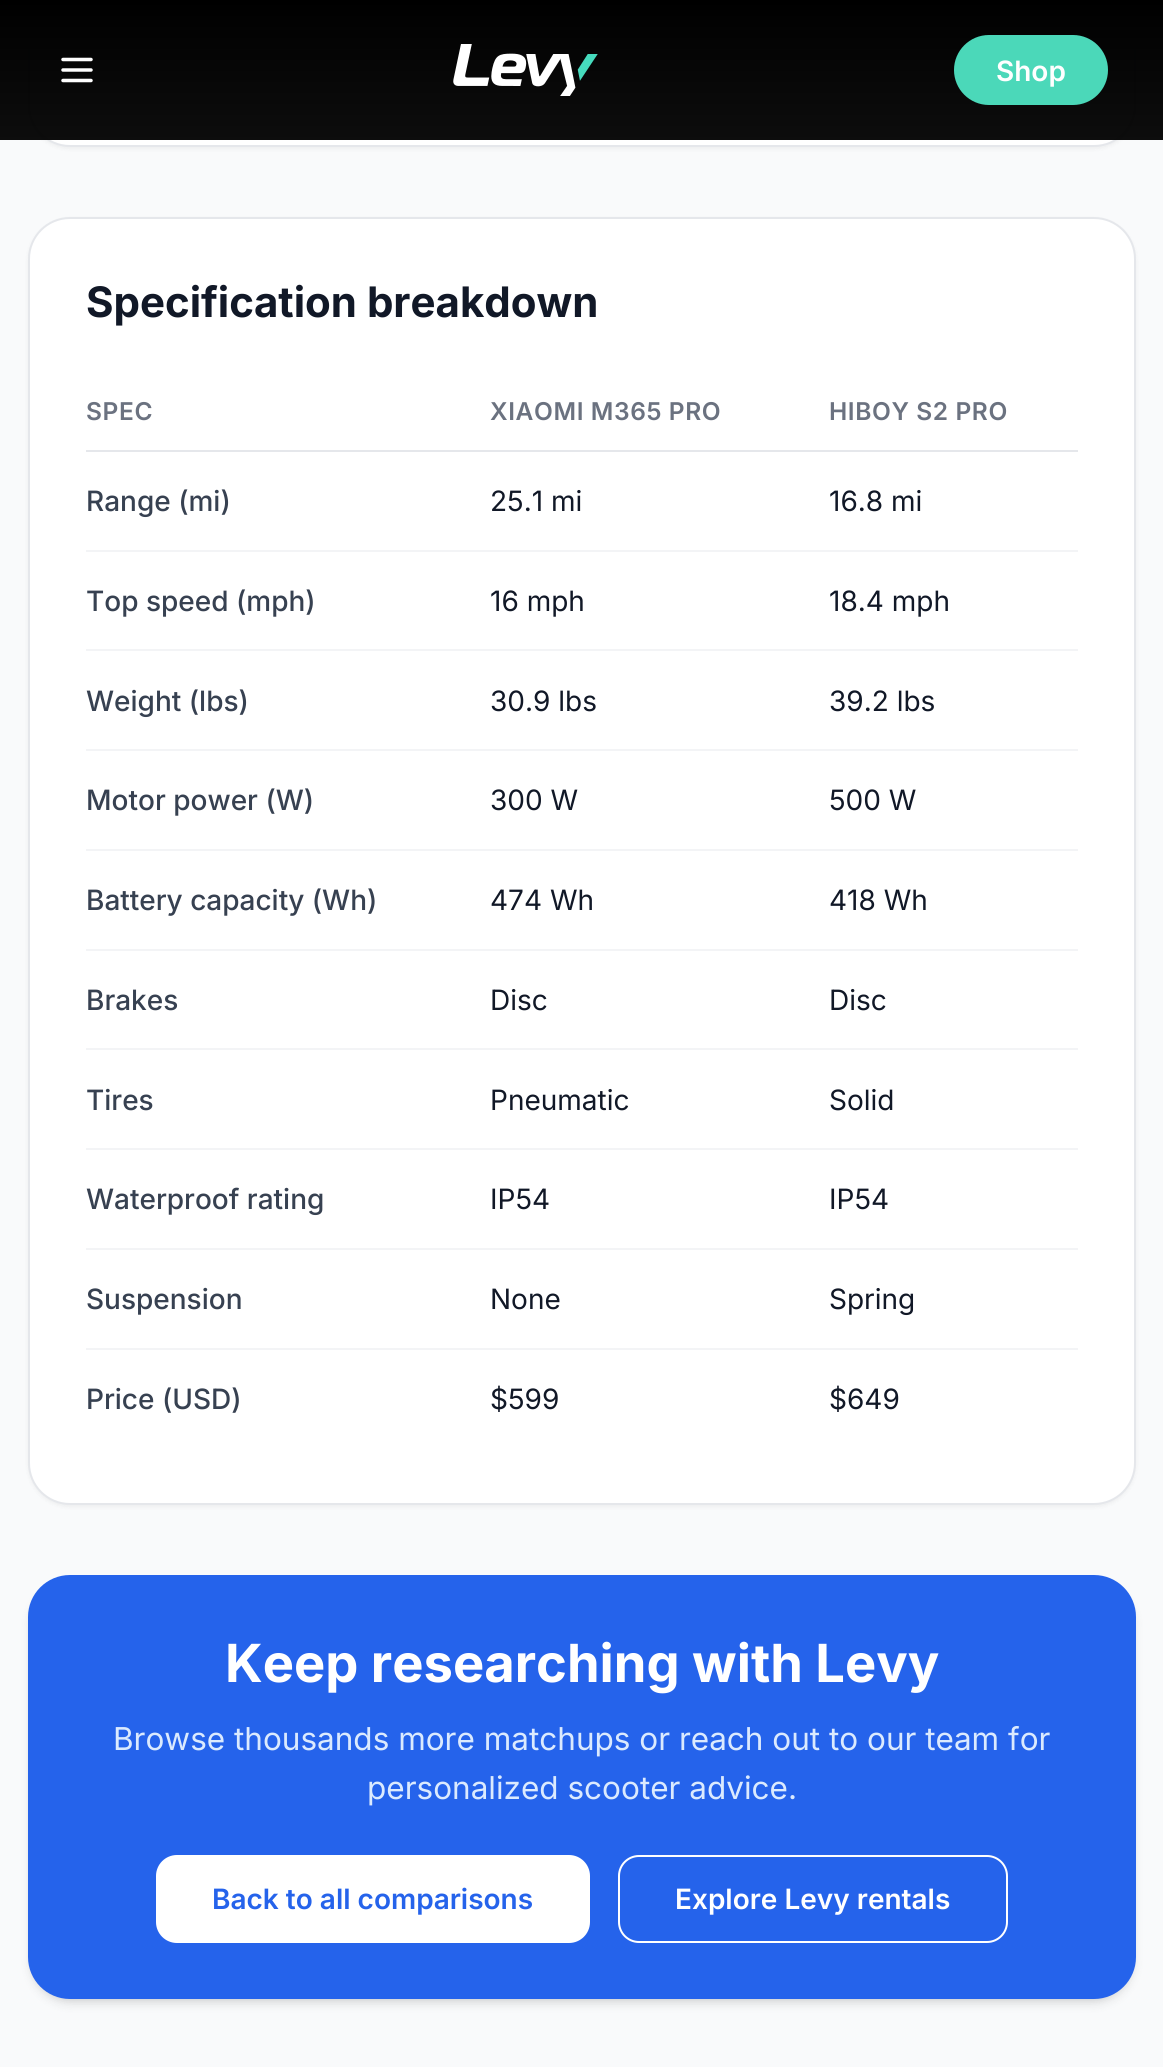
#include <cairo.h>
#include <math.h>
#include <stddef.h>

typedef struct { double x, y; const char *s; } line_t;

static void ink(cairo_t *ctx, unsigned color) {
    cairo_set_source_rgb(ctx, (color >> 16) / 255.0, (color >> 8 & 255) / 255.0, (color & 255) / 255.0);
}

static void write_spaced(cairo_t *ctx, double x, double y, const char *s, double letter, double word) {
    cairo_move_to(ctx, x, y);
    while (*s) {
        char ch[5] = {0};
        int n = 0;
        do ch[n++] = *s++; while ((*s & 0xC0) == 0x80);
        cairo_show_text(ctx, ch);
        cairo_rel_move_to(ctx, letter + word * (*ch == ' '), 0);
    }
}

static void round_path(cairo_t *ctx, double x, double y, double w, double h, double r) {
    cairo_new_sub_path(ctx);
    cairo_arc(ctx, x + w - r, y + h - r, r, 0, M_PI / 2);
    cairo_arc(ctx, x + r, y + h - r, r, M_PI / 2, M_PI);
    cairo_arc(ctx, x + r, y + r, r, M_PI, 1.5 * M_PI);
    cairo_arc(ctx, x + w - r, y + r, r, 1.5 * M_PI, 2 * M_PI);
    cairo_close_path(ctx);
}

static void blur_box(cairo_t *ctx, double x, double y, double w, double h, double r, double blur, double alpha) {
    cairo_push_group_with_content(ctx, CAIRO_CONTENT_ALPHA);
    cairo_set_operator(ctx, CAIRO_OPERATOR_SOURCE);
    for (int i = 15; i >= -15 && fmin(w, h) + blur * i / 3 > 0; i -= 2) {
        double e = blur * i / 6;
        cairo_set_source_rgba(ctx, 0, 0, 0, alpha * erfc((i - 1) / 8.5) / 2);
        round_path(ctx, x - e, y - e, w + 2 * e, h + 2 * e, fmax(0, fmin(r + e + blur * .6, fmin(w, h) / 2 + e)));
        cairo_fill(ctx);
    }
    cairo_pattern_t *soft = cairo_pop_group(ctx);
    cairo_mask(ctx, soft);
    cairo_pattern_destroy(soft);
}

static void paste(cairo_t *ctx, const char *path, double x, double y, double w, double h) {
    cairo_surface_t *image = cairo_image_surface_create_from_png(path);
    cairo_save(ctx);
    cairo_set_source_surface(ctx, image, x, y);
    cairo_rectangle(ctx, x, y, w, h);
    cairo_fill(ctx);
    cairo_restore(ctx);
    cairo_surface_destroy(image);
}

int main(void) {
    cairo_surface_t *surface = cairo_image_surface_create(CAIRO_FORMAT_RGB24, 1163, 2067);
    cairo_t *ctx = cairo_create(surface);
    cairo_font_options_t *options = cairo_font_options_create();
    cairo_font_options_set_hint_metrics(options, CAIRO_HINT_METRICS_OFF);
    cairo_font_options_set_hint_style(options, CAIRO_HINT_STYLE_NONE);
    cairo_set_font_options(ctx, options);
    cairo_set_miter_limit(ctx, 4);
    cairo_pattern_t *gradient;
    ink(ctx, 0xF9FAFB);
    cairo_paint(ctx);
    ink(ctx, 0x000000);
    blur_box(ctx, 28, -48, 1108, 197, 42, 2, 0.05);
    ink(ctx, 0xFFFFFF);
    round_path(ctx, 29, -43, 1106, 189, 41);
    cairo_fill_preserve(ctx);
    ink(ctx, 0xE5E7EB);
    cairo_stroke(ctx);
    ink(ctx, 0xF9FAFB);
    round_path(ctx, 87, -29, 990, 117, 27);
    cairo_fill_preserve(ctx);
    ink(ctx, 0xF3F4F6);
    cairo_stroke(ctx);
    ink(ctx, 0x000000);
    blur_box(ctx, 130, -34, 392, 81, 28, 2, 0.05);
    ink(ctx, 0xFFFFFF);
    round_path(ctx, 130, -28, 392, 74, 28);
    cairo_fill(ctx);
    gradient = cairo_pattern_create_linear(582, 0, 582, 140);
    cairo_pattern_add_color_stop_rgba(gradient, 0, 0, 0, 0, 1);
    cairo_pattern_add_color_stop_rgba(gradient, 1, 0, 0, 0, 0.95);
    cairo_set_source(ctx, gradient);
    cairo_pattern_destroy(gradient);
    cairo_rectangle(ctx, 0, 0, 1163, 140);
    cairo_fill(ctx);
    cairo_new_path(ctx);
    cairo_move_to(ctx, 63, 59.5);
    cairo_line_to(ctx, 91, 59.5);
    cairo_move_to(ctx, 63, 70);
    cairo_line_to(ctx, 91, 70);
    cairo_move_to(ctx, 63, 80.5);
    cairo_line_to(ctx, 91, 80.5);
    ink(ctx, 0xFFFFFF);
    cairo_set_line_width(ctx, 3.5);
    cairo_set_line_cap(ctx, CAIRO_LINE_CAP_ROUND);
    cairo_set_line_join(ctx, CAIRO_LINE_JOIN_ROUND);
    cairo_stroke(ctx);
    paste(ctx, "media/1.png", 453, 44, 145, 52);
    ink(ctx, 0x4BD8B9);
    round_path(ctx, 954, 35, 154, 70, 35);
    cairo_fill(ctx);
    cairo_select_font_face(ctx, "Inter SemiBold", CAIRO_FONT_SLANT_NORMAL, CAIRO_FONT_WEIGHT_NORMAL);
    cairo_set_font_size(ctx, 28);
    ink(ctx, 0xFFFFFF);
    cairo_move_to(ctx, 996, 81);
    cairo_show_text(ctx, "Shop");
    ink(ctx, 0x000000);
    blur_box(ctx, 28, 219, 1108, 1288, 42, 2, 0.05);
    ink(ctx, 0xFFFFFF);
    round_path(ctx, 29, 218, 1106, 1286, 41);
    cairo_fill_preserve(ctx);
    ink(ctx, 0xE5E7EB);
    cairo_set_line_width(ctx, 2);
    cairo_set_line_cap(ctx, CAIRO_LINE_CAP_BUTT);
    cairo_set_line_join(ctx, CAIRO_LINE_JOIN_MITER);
    cairo_stroke(ctx);
    cairo_select_font_face(ctx, "Inter", CAIRO_FONT_SLANT_NORMAL, CAIRO_FONT_WEIGHT_BOLD);
    cairo_set_font_size(ctx, 42);
    ink(ctx, 0x111827);
    cairo_move_to(ctx, 86, 317);
    cairo_show_text(ctx, "Specification breakdown");
    cairo_select_font_face(ctx, "Inter SemiBold", CAIRO_FONT_SLANT_NORMAL, CAIRO_FONT_WEIGHT_NORMAL);
    cairo_set_font_size(ctx, 24.5);
    ink(ctx, 0x6B7280);
    {
        static const line_t items[] = {
            {86, 420, "SPEC"},
            {490, 420, "XIAOMI M365 PRO"},
            {829, 420, "HIBOY S2 PRO"},
        };
        for (size_t i = 0; i < sizeof items / sizeof *items; i++) {
            write_spaced(ctx, items[i].x, items[i].y, items[i].s, 0.6, 0);
        }
    }
    ink(ctx, 0xE5E7EB);
    cairo_rectangle(ctx, 86, 450, 992, 2);
    cairo_fill(ctx);
    cairo_select_font_face(ctx, "Inter Medium", CAIRO_FONT_SLANT_NORMAL, CAIRO_FONT_WEIGHT_NORMAL);
    cairo_set_font_size(ctx, 28);
    ink(ctx, 0x374151);
    cairo_move_to(ctx, 86, 511);
    cairo_show_text(ctx, "Range (mi)");
    cairo_select_font_face(ctx, "Inter", CAIRO_FONT_SLANT_NORMAL, CAIRO_FONT_WEIGHT_NORMAL);
    ink(ctx, 0x111827);
    cairo_move_to(ctx, 490, 511);
    cairo_show_text(ctx, "25.1 mi");
    cairo_move_to(ctx, 829, 511);
    cairo_show_text(ctx, "16.8 mi");
    ink(ctx, 0xF3F4F6);
    cairo_rectangle(ctx, 86, 550, 992, 2);
    cairo_fill(ctx);
    cairo_select_font_face(ctx, "Inter Medium", CAIRO_FONT_SLANT_NORMAL, CAIRO_FONT_WEIGHT_NORMAL);
    ink(ctx, 0x374151);
    cairo_move_to(ctx, 86, 611);
    cairo_show_text(ctx, "Top speed (mph)");
    cairo_select_font_face(ctx, "Inter", CAIRO_FONT_SLANT_NORMAL, CAIRO_FONT_WEIGHT_NORMAL);
    ink(ctx, 0x111827);
    cairo_move_to(ctx, 490, 611);
    cairo_show_text(ctx, "16 mph");
    cairo_move_to(ctx, 829, 611);
    cairo_show_text(ctx, "18.4 mph");
    ink(ctx, 0xF3F4F6);
    cairo_rectangle(ctx, 86, 649, 992, 2);
    cairo_fill(ctx);
    cairo_select_font_face(ctx, "Inter Medium", CAIRO_FONT_SLANT_NORMAL, CAIRO_FONT_WEIGHT_NORMAL);
    ink(ctx, 0x374151);
    cairo_move_to(ctx, 86, 711);
    cairo_show_text(ctx, "Weight (lbs)");
    cairo_select_font_face(ctx, "Inter", CAIRO_FONT_SLANT_NORMAL, CAIRO_FONT_WEIGHT_NORMAL);
    ink(ctx, 0x111827);
    cairo_move_to(ctx, 490, 711);
    cairo_show_text(ctx, "30.9 lbs");
    cairo_move_to(ctx, 829, 711);
    cairo_show_text(ctx, "39.2 lbs");
    ink(ctx, 0xF3F4F6);
    cairo_rectangle(ctx, 86, 749, 992, 2);
    cairo_fill(ctx);
    cairo_select_font_face(ctx, "Inter Medium", CAIRO_FONT_SLANT_NORMAL, CAIRO_FONT_WEIGHT_NORMAL);
    ink(ctx, 0x374151);
    cairo_move_to(ctx, 86, 810);
    cairo_show_text(ctx, "Motor power (W)");
    cairo_select_font_face(ctx, "Inter", CAIRO_FONT_SLANT_NORMAL, CAIRO_FONT_WEIGHT_NORMAL);
    ink(ctx, 0x111827);
    cairo_move_to(ctx, 490, 810);
    cairo_show_text(ctx, "300 W");
    cairo_move_to(ctx, 829, 810);
    cairo_show_text(ctx, "500 W");
    ink(ctx, 0xF3F4F6);
    cairo_rectangle(ctx, 86, 849, 992, 2);
    cairo_fill(ctx);
    cairo_select_font_face(ctx, "Inter Medium", CAIRO_FONT_SLANT_NORMAL, CAIRO_FONT_WEIGHT_NORMAL);
    ink(ctx, 0x374151);
    cairo_move_to(ctx, 86, 910);
    cairo_show_text(ctx, "Battery capacity (Wh)");
    cairo_select_font_face(ctx, "Inter", CAIRO_FONT_SLANT_NORMAL, CAIRO_FONT_WEIGHT_NORMAL);
    ink(ctx, 0x111827);
    cairo_move_to(ctx, 490, 910);
    cairo_show_text(ctx, "474 Wh");
    cairo_move_to(ctx, 829, 910);
    cairo_show_text(ctx, "418 Wh");
    ink(ctx, 0xF3F4F6);
    cairo_rectangle(ctx, 86, 949, 992, 2);
    cairo_fill(ctx);
    cairo_select_font_face(ctx, "Inter Medium", CAIRO_FONT_SLANT_NORMAL, CAIRO_FONT_WEIGHT_NORMAL);
    ink(ctx, 0x374151);
    cairo_move_to(ctx, 86, 1010);
    cairo_show_text(ctx, "Brakes");
    cairo_select_font_face(ctx, "Inter", CAIRO_FONT_SLANT_NORMAL, CAIRO_FONT_WEIGHT_NORMAL);
    ink(ctx, 0x111827);
    cairo_move_to(ctx, 490, 1010);
    cairo_show_text(ctx, "Disc");
    cairo_move_to(ctx, 829, 1010);
    cairo_show_text(ctx, "Disc");
    ink(ctx, 0xF3F4F6);
    cairo_rectangle(ctx, 86, 1048, 992, 2);
    cairo_fill(ctx);
    cairo_select_font_face(ctx, "Inter Medium", CAIRO_FONT_SLANT_NORMAL, CAIRO_FONT_WEIGHT_NORMAL);
    ink(ctx, 0x374151);
    cairo_move_to(ctx, 86, 1110);
    cairo_show_text(ctx, "Tires");
    cairo_select_font_face(ctx, "Inter", CAIRO_FONT_SLANT_NORMAL, CAIRO_FONT_WEIGHT_NORMAL);
    ink(ctx, 0x111827);
    cairo_move_to(ctx, 490, 1110);
    cairo_show_text(ctx, "Pneumatic");
    cairo_move_to(ctx, 829, 1110);
    cairo_show_text(ctx, "Solid");
    ink(ctx, 0xF3F4F6);
    cairo_rectangle(ctx, 86, 1148, 992, 2);
    cairo_fill(ctx);
    cairo_select_font_face(ctx, "Inter Medium", CAIRO_FONT_SLANT_NORMAL, CAIRO_FONT_WEIGHT_NORMAL);
    ink(ctx, 0x374151);
    cairo_move_to(ctx, 86, 1209);
    cairo_show_text(ctx, "Waterproof rating");
    cairo_select_font_face(ctx, "Inter", CAIRO_FONT_SLANT_NORMAL, CAIRO_FONT_WEIGHT_NORMAL);
    ink(ctx, 0x111827);
    cairo_move_to(ctx, 490, 1209);
    cairo_show_text(ctx, "IP54");
    cairo_move_to(ctx, 829, 1209);
    cairo_show_text(ctx, "IP54");
    ink(ctx, 0xF3F4F6);
    cairo_rectangle(ctx, 86, 1248, 992, 2);
    cairo_fill(ctx);
    cairo_select_font_face(ctx, "Inter Medium", CAIRO_FONT_SLANT_NORMAL, CAIRO_FONT_WEIGHT_NORMAL);
    ink(ctx, 0x374151);
    cairo_move_to(ctx, 86, 1309);
    cairo_show_text(ctx, "Suspension");
    cairo_select_font_face(ctx, "Inter", CAIRO_FONT_SLANT_NORMAL, CAIRO_FONT_WEIGHT_NORMAL);
    ink(ctx, 0x111827);
    cairo_move_to(ctx, 490, 1309);
    cairo_show_text(ctx, "None");
    cairo_move_to(ctx, 829, 1309);
    cairo_show_text(ctx, "Spring");
    ink(ctx, 0xF3F4F6);
    cairo_rectangle(ctx, 86, 1348, 992, 2);
    cairo_fill(ctx);
    cairo_select_font_face(ctx, "Inter Medium", CAIRO_FONT_SLANT_NORMAL, CAIRO_FONT_WEIGHT_NORMAL);
    ink(ctx, 0x374151);
    cairo_move_to(ctx, 86, 1409);
    cairo_show_text(ctx, "Price (USD)");
    cairo_select_font_face(ctx, "Inter", CAIRO_FONT_SLANT_NORMAL, CAIRO_FONT_WEIGHT_NORMAL);
    ink(ctx, 0x111827);
    cairo_move_to(ctx, 490, 1409);
    cairo_show_text(ctx, "$599");
    cairo_move_to(ctx, 829, 1409);
    cairo_show_text(ctx, "$649");
    ink(ctx, 0x000000);
    blur_box(ctx, 32, 1582, 1100, 417, 39, 3.5, 0.1);
    blur_box(ctx, 30, 1584, 1104, 420, 40, 5, 0.1);
    ink(ctx, 0x2563EB);
    round_path(ctx, 28, 1575, 1108, 424, 42);
    cairo_fill(ctx);
    cairo_select_font_face(ctx, "Inter", CAIRO_FONT_SLANT_NORMAL, CAIRO_FONT_WEIGHT_BOLD);
    cairo_set_font_size(ctx, 52.5);
    ink(ctx, 0xFFFFFF);
    cairo_move_to(ctx, 225, 1682);
    cairo_show_text(ctx, "Keep researching with Levy");
    cairo_select_font_face(ctx, "Inter", CAIRO_FONT_SLANT_NORMAL, CAIRO_FONT_WEIGHT_NORMAL);
    cairo_set_font_size(ctx, 31.5);
    ink(ctx, 0xDBEAFE);
    cairo_move_to(ctx, 113, 1750);
    cairo_show_text(ctx, "Browse thousands more matchups or reach out to our team for");
    cairo_move_to(ctx, 367, 1799);
    cairo_show_text(ctx, "personalized scooter advice.");
    ink(ctx, 0xFFFFFF);
    round_path(ctx, 156, 1855, 434, 88, 21);
    cairo_fill(ctx);
    cairo_select_font_face(ctx, "Inter SemiBold", CAIRO_FONT_SLANT_NORMAL, CAIRO_FONT_WEIGHT_NORMAL);
    cairo_set_font_size(ctx, 28);
    ink(ctx, 0x2563EB);
    cairo_move_to(ctx, 212, 1909);
    cairo_show_text(ctx, "Back to all comparisons");
    round_path(ctx, 619, 1856, 388, 86, 20);
    ink(ctx, 0xFFFFFF);
    cairo_stroke(ctx);
    cairo_move_to(ctx, 675, 1909);
    cairo_show_text(ctx, "Explore Levy rentals");
    cairo_surface_write_to_png(surface, "image.png");
    cairo_font_options_destroy(options);
    cairo_destroy(ctx);
    cairo_surface_destroy(surface);
    return 0;
}
